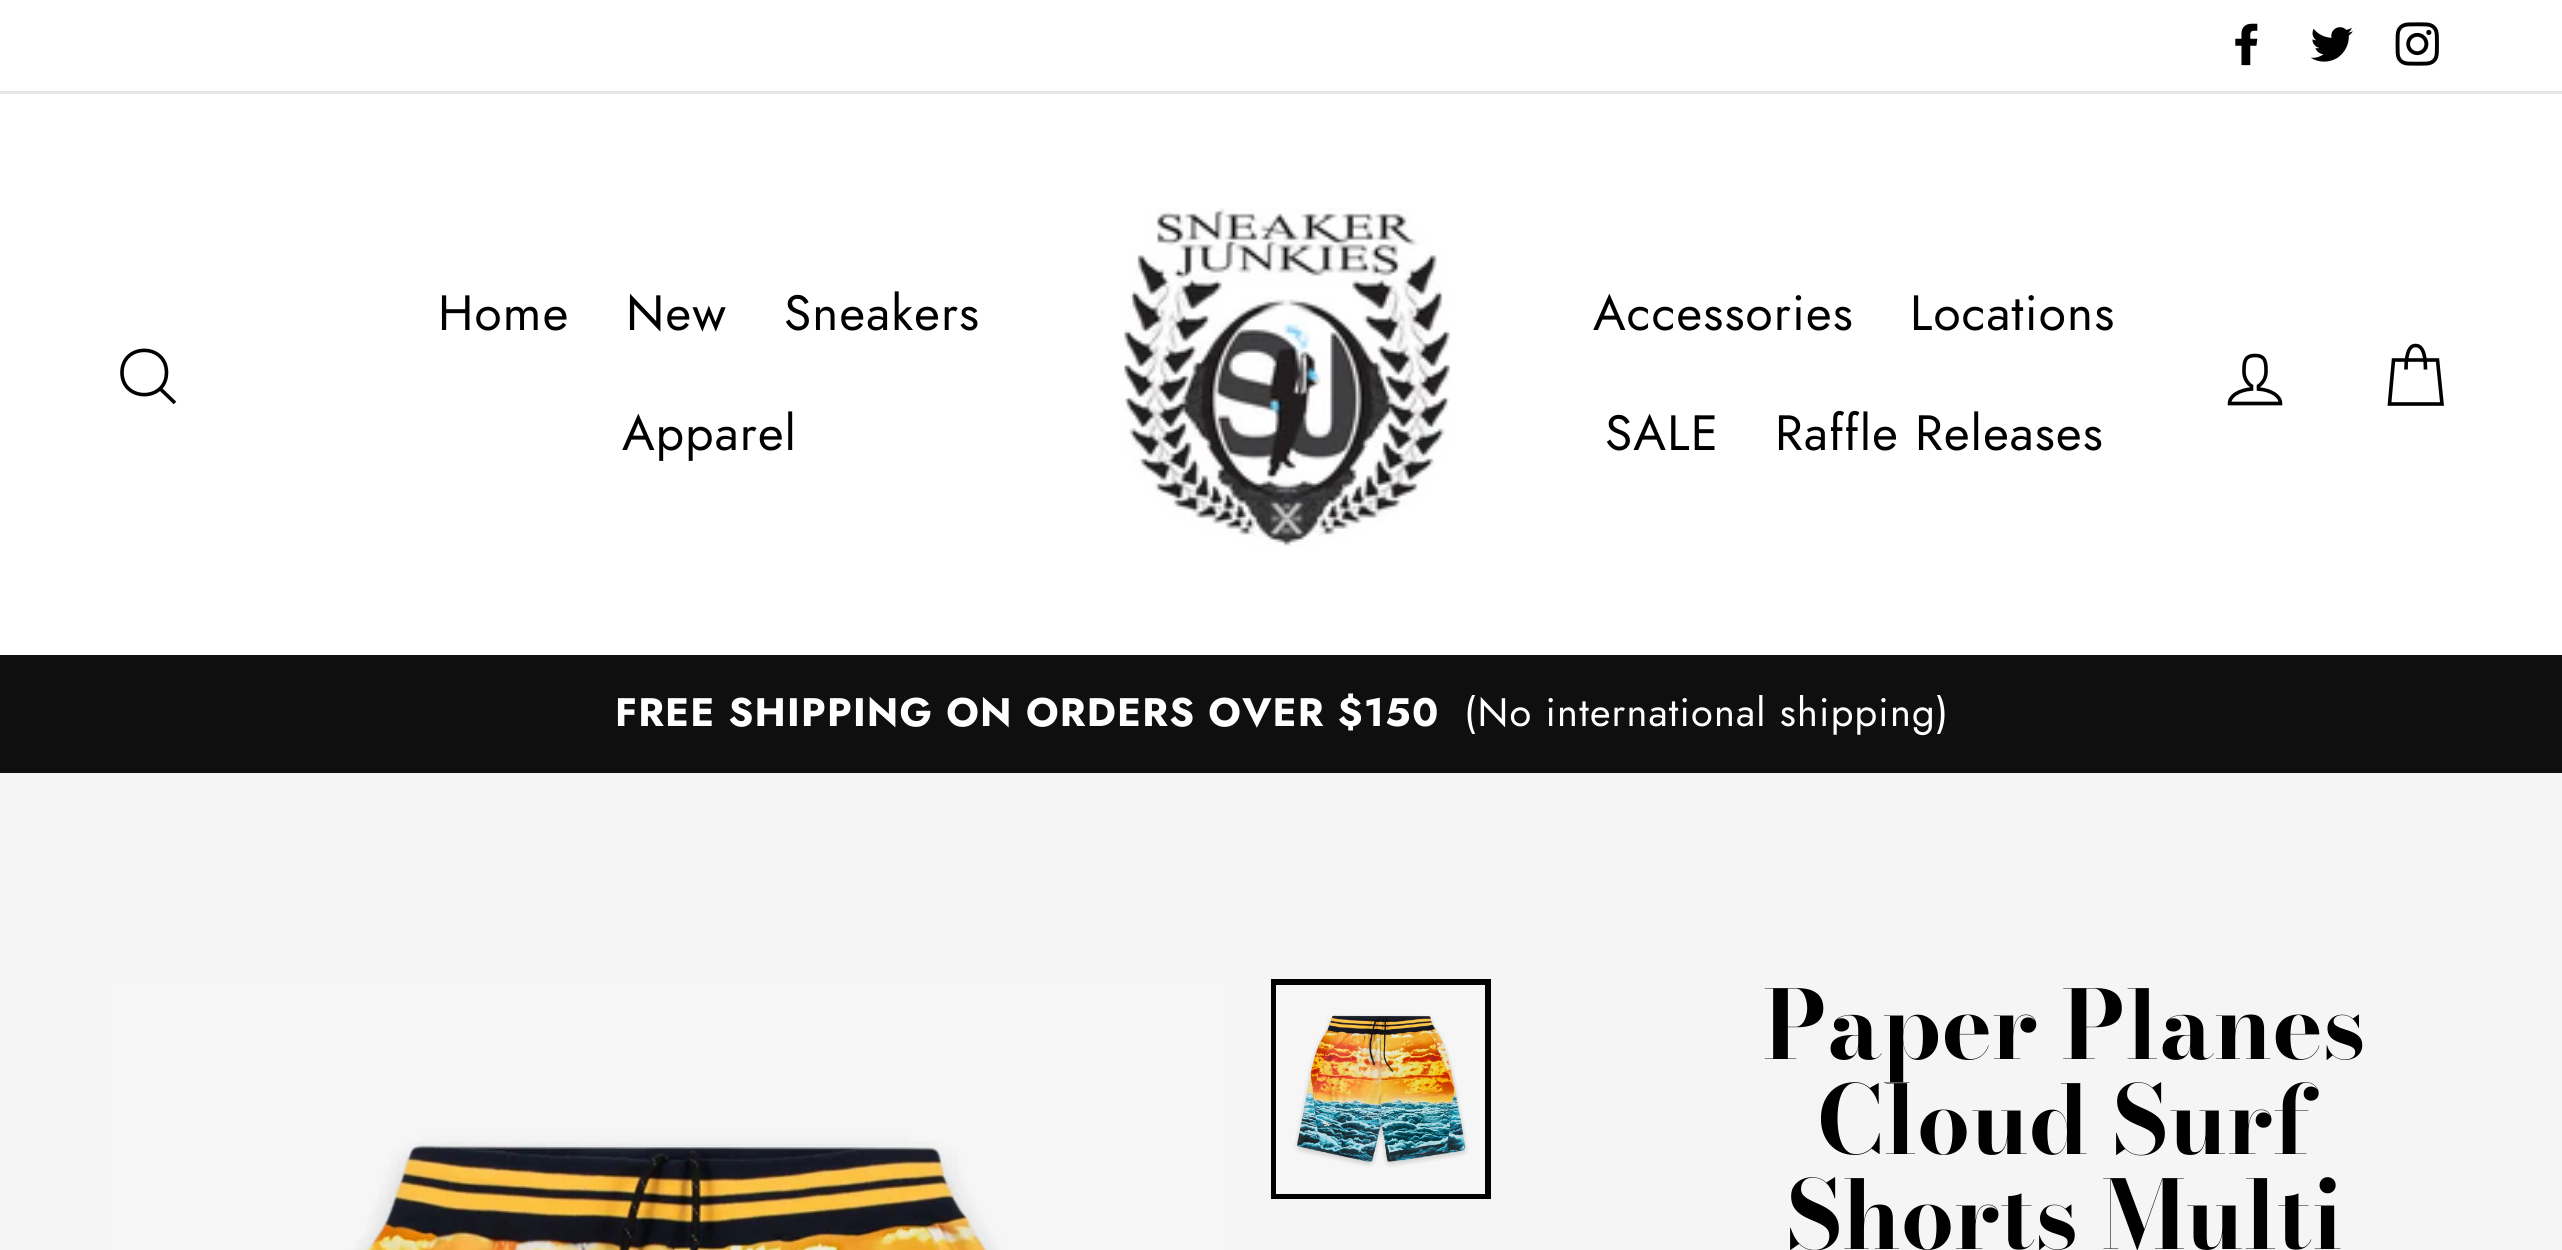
#include <cairo.h>
#include <math.h>
#include <stddef.h>

typedef struct { double x, y; const char *s; } line_t;

static void ink(cairo_t *ctx, unsigned color) {
    cairo_set_source_rgb(ctx, (color >> 16) / 255.0, (color >> 8 & 255) / 255.0, (color & 255) / 255.0);
}

static void write_spaced(cairo_t *ctx, double x, double y, const char *s, double letter, double word) {
    cairo_move_to(ctx, x, y);
    while (*s) {
        char ch[5] = {0};
        int n = 0;
        do ch[n++] = *s++; while ((*s & 0xC0) == 0x80);
        cairo_show_text(ctx, ch);
        cairo_rel_move_to(ctx, letter + word * (*ch == ' '), 0);
    }
}

static void paste(cairo_t *ctx, const char *path, double x, double y, double w, double h) {
    cairo_surface_t *image = cairo_image_surface_create_from_png(path);
    cairo_save(ctx);
    cairo_set_source_surface(ctx, image, x, y);
    cairo_rectangle(ctx, x, y, w, h);
    cairo_fill(ctx);
    cairo_restore(ctx);
    cairo_surface_destroy(image);
}

int main(void) {
    cairo_surface_t *surface = cairo_image_surface_create(CAIRO_FORMAT_RGB24, 2562, 1250);
    cairo_t *ctx = cairo_create(surface);
    cairo_font_options_t *options = cairo_font_options_create();
    cairo_font_options_set_hint_metrics(options, CAIRO_HINT_METRICS_OFF);
    cairo_font_options_set_hint_style(options, CAIRO_HINT_STYLE_NONE);
    cairo_set_font_options(ctx, options);
    cairo_set_miter_limit(ctx, 4);
    ink(ctx, 0xF5F5F5);
    cairo_paint(ctx);
    ink(ctx, 0xFFFFFF);
    cairo_rectangle(ctx, 0, 0, 2562, 91);
    cairo_fill(ctx);
    paste(ctx, "media/1.png", 2235, 23, 23, 43);
    paste(ctx, "media/2.png", 2311, 27, 42, 35);
    paste(ctx, "media/3.png", 2395, 22, 44, 44);
    cairo_rectangle(ctx, 0, 94, 2562, 561);
    cairo_fill(ctx);
    ink(ctx, 0xE6E6E6);
    cairo_rectangle(ctx, 0, 91, 2562, 3);
    cairo_fill(ctx);
    cairo_new_path(ctx);
    cairo_move_to(ctx, 166.5, 372.5);
    cairo_curve_to(ctx, 166.5, 402, 122, 402, 122, 372.5);
    cairo_curve_to(ctx, 122, 343, 166.5, 343, 166.5, 372.5);
    cairo_close_path(ctx);
    cairo_move_to(ctx, 175, 403);
    cairo_line_to(ctx, 160.5, 389);
    ink(ctx, 0x000000);
    cairo_set_line_width(ctx, 3.6);
    cairo_stroke(ctx);
    cairo_select_font_face(ctx, "Jost", CAIRO_FONT_SLANT_NORMAL, CAIRO_FONT_WEIGHT_NORMAL);
    cairo_set_font_size(ctx, 49.5);
    {
        static const line_t items[] = {
            {438, 330, "Home"},
            {626, 330, "New"},
            {784, 330, "Sneakers"},
            {622, 450, "Apparel"},
        };
        for (size_t i = 0; i < sizeof items / sizeof *items; i++) {
            write_spaced(ctx, items[i].x, items[i].y, items[i].s, 1.2, 0);
        }
    }
    paste(ctx, "media/4.png", 1120, 208, 331, 339);
    {
        static const line_t items[] = {
            {1593, 330, "Accessories"},
            {1910, 330, "Locations"},
            {1605, 450, "SALE"},
            {1775, 450, "Raffle Releases"},
        };
        for (size_t i = 0; i < sizeof items / sizeof *items; i++) {
            write_spaced(ctx, items[i].x, items[i].y, items[i].s, 1.2, 0);
        }
    }
    cairo_new_path(ctx);
    cairo_move_to(ctx, 2258.5, 389);
    cairo_line_to(ctx, 2258.5, 386);
    cairo_curve_to(ctx, 2262.5, 383.5, 2266, 378, 2266, 372);
    cairo_curve_to(ctx, 2266, 363, 2266, 355.5, 2255, 355.5);
    cairo_curve_to(ctx, 2244, 355.5, 2244, 363, 2244, 372);
    cairo_curve_to(ctx, 2244, 378, 2247.5, 383.5, 2251.5, 386);
    cairo_line_to(ctx, 2251.5, 389);
    cairo_curve_to(ctx, 2239, 390, 2229.5, 396, 2229.5, 403.5);
    cairo_line_to(ctx, 2280.5, 403.5);
    cairo_curve_to(ctx, 2280.5, 396, 2271, 390, 2258.5, 389);
    cairo_close_path(ctx);
    cairo_stroke(ctx);
    cairo_new_path(ctx);
    cairo_move_to(ctx, 2406, 369.5);
    cairo_curve_to(ctx, 2406, 350.5, 2410.5, 345.5, 2415.5, 345.5);
    cairo_curve_to(ctx, 2421, 345.5, 2425.5, 350.5, 2425.5, 369.5);
    cairo_move_to(ctx, 2393.5, 360);
    cairo_line_to(ctx, 2437.5, 360);
    cairo_line_to(ctx, 2442, 404);
    cairo_line_to(ctx, 2389.5, 404);
    cairo_close_path(ctx);
    cairo_stroke(ctx);
    ink(ctx, 0x0F0F0F);
    cairo_rectangle(ctx, 0, 655, 2562, 118);
    cairo_fill(ctx);
    cairo_select_font_face(ctx, "Jost", CAIRO_FONT_SLANT_NORMAL, CAIRO_FONT_WEIGHT_BOLD);
    cairo_set_font_size(ctx, 39.75);
    ink(ctx, 0xFFFFFF);
    write_spaced(ctx, 615, 726, "FREE SHIPPING ON ORDERS OVER $150", 1.2, 0);
    cairo_select_font_face(ctx, "Jost", CAIRO_FONT_SLANT_NORMAL, CAIRO_FONT_WEIGHT_NORMAL);
    write_spaced(ctx, 1464, 726, "(No international shipping)", 1.2, 0);
    paste(ctx, "media/5.png", 110, 979, 1119, 271);
    cairo_rectangle(ctx, 1274, 982, 214, 214);
    ink(ctx, 0x000000);
    cairo_set_line_width(ctx, 6);
    cairo_stroke(ctx);
    paste(ctx, "media/6.png", 1276, 985, 209, 209);
    cairo_select_font_face(ctx, "Bodoni Moda", CAIRO_FONT_SLANT_NORMAL, CAIRO_FONT_WEIGHT_BOLD);
    cairo_set_font_size(ctx, 94.5);
    {
        static const line_t items[] = {
            {1763, 1059, "Paper Planes"},
            {1817, 1154, "Cloud Surf"},
            {1786, 1249, "Shorts Multi"},
        };
        for (size_t i = 0; i < sizeof items / sizeof *items; i++) {
            cairo_move_to(ctx, items[i].x, items[i].y);
            cairo_show_text(ctx, items[i].s);
        }
    }
    cairo_surface_write_to_png(surface, "image.png");
    cairo_font_options_destroy(options);
    cairo_destroy(ctx);
    cairo_surface_destroy(surface);
    return 0;
}
